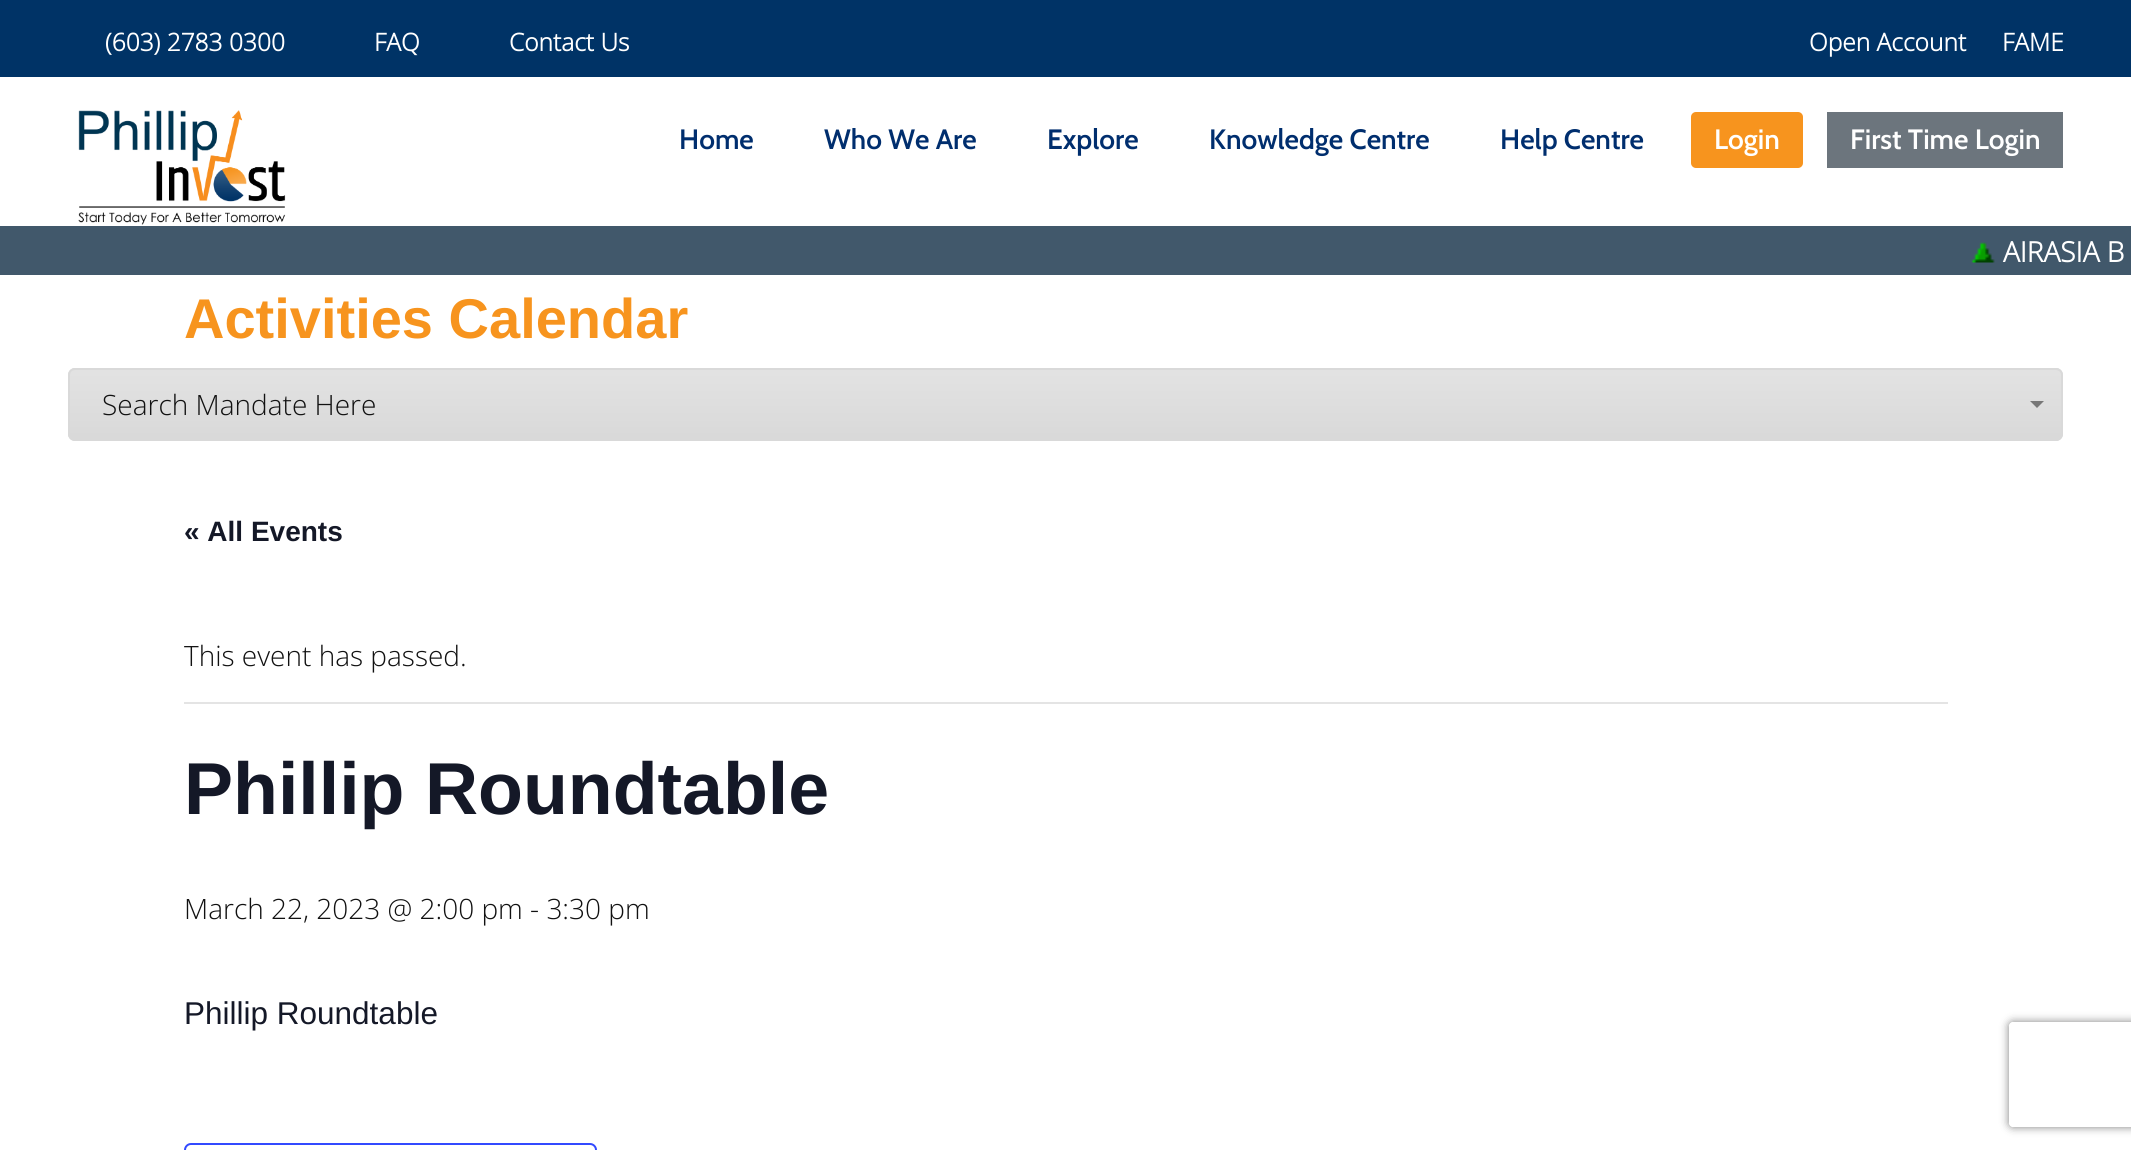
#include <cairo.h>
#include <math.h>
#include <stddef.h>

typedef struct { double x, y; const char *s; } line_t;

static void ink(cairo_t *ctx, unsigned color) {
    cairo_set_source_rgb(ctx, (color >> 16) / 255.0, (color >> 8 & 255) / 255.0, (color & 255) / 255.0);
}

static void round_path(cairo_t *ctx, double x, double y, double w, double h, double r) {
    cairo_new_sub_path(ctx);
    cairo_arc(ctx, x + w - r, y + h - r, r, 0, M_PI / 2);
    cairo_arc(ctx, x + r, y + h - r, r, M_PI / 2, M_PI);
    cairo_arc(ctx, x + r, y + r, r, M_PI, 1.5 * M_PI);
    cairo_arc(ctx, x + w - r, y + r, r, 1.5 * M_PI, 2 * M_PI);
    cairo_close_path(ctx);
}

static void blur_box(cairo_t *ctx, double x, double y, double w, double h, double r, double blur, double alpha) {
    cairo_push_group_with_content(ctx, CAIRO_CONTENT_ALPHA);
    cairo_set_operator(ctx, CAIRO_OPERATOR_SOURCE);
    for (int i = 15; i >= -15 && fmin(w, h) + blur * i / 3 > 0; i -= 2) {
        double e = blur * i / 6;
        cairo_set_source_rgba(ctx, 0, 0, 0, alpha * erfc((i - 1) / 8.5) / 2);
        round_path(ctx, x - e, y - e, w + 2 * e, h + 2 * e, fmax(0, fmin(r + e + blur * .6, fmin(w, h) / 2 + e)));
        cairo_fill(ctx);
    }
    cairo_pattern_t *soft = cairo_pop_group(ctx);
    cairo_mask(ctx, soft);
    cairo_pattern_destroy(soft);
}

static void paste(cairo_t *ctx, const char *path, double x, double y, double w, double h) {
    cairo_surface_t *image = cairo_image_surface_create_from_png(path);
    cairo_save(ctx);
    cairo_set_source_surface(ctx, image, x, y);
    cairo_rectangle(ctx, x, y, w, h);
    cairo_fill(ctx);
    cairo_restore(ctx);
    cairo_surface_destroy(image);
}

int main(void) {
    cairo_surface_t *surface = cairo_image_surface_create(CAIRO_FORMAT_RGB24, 2131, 1150);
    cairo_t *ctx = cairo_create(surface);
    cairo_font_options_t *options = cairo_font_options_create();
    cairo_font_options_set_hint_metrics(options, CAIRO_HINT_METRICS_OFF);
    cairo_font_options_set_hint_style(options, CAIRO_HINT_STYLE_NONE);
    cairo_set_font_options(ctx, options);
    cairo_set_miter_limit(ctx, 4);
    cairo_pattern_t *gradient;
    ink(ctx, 0xFFFFFF);
    cairo_paint(ctx);
    ink(ctx, 0x003366);
    cairo_rectangle(ctx, 0, 0, 2131, 77);
    cairo_fill(ctx);
    cairo_select_font_face(ctx, "Open Sans", CAIRO_FONT_SLANT_NORMAL, CAIRO_FONT_WEIGHT_BOLD);
    cairo_set_font_size(ctx, 24.5);
    ink(ctx, 0xFFFFFF);
    {
        static const line_t items[] = {
            {105, 51, "(603) 2783 0300"},
            {374, 51, "FAQ"},
            {509, 51, "Contact Us"},
            {1809, 51, "Open Account"},
            {2002, 51, "FAME"},
        };
        for (size_t i = 0; i < sizeof items / sizeof *items; i++) {
            cairo_move_to(ctx, items[i].x, items[i].y);
            cairo_show_text(ctx, items[i].s);
        }
    }
    paste(ctx, "media/1.png", 78, 110, 208, 115);
    cairo_select_font_face(ctx, "Cabin SemiBold", CAIRO_FONT_SLANT_NORMAL, CAIRO_FONT_WEIGHT_NORMAL);
    cairo_set_font_size(ctx, 28);
    ink(ctx, 0x002E6E);
    {
        static const line_t items[] = {
            {679, 149, "Home"},
            {824, 149, "Who We Are"},
            {1047, 149, "Explore"},
            {1209, 149, "Knowledge Centre"},
            {1500, 149, "Help Centre"},
        };
        for (size_t i = 0; i < sizeof items / sizeof *items; i++) {
            cairo_move_to(ctx, items[i].x, items[i].y);
            cairo_show_text(ctx, items[i].s);
        }
    }
    ink(ctx, 0xF7941E);
    round_path(ctx, 1691, 112, 112, 56, 5);
    cairo_fill(ctx);
    ink(ctx, 0xFFFFFF);
    cairo_move_to(ctx, 1714, 149);
    cairo_show_text(ctx, "Login");
    ink(ctx, 0x6C757D);
    cairo_rectangle(ctx, 1827, 112, 236, 56);
    cairo_fill(ctx);
    ink(ctx, 0xFFFFFF);
    cairo_move_to(ctx, 1850, 149);
    cairo_show_text(ctx, "First Time Login");
    ink(ctx, 0x41586B);
    cairo_rectangle(ctx, 0, 226, 2131, 49);
    cairo_fill(ctx);
    paste(ctx, "media/2.png", 1971, 242, 24, 21);
    cairo_select_font_face(ctx, "Open Sans", CAIRO_FONT_SLANT_NORMAL, CAIRO_FONT_WEIGHT_BOLD);
    ink(ctx, 0xFFFFFF);
    cairo_move_to(ctx, 2003, 262);
    cairo_show_text(ctx, "AIRASIA B");
    cairo_select_font_face(ctx, "Liberation Sans", CAIRO_FONT_SLANT_NORMAL, CAIRO_FONT_WEIGHT_BOLD);
    cairo_set_font_size(ctx, 56);
    ink(ctx, 0xF7941E);
    cairo_move_to(ctx, 184, 338);
    cairo_show_text(ctx, "Activities Calendar");
    cairo_set_font_size(ctx, 28);
    ink(ctx, 0x141827);
    cairo_move_to(ctx, 184, 541);
    cairo_show_text(ctx, "« All Events");
    ink(ctx, 0xE4E4E4);
    cairo_rectangle(ctx, 184, 702, 1764, 2);
    cairo_fill(ctx);
    cairo_select_font_face(ctx, "Open Sans Light", CAIRO_FONT_SLANT_NORMAL, CAIRO_FONT_WEIGHT_NORMAL);
    ink(ctx, 0x111111);
    cairo_move_to(ctx, 184, 666);
    cairo_show_text(ctx, "This event has passed.");
    cairo_select_font_face(ctx, "Liberation Sans", CAIRO_FONT_SLANT_NORMAL, CAIRO_FONT_WEIGHT_BOLD);
    cairo_set_font_size(ctx, 73.5);
    ink(ctx, 0x141827);
    cairo_move_to(ctx, 184, 814);
    cairo_show_text(ctx, "Phillip Roundtable");
    cairo_select_font_face(ctx, "Open Sans Light", CAIRO_FONT_SLANT_NORMAL, CAIRO_FONT_WEIGHT_NORMAL);
    cairo_set_font_size(ctx, 28);
    ink(ctx, 0x111111);
    cairo_move_to(ctx, 184, 919);
    cairo_show_text(ctx, "March 22, 2023 @ 2:00 pm - 3:30 pm");
    cairo_select_font_face(ctx, "Liberation Sans", CAIRO_FONT_SLANT_NORMAL, CAIRO_FONT_WEIGHT_NORMAL);
    cairo_set_font_size(ctx, 31.5);
    ink(ctx, 0x141827);
    cairo_move_to(ctx, 184, 1024);
    cairo_show_text(ctx, "Phillip Roundtable");
    round_path(ctx, 185, 1144, 411, 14, 6);
    ink(ctx, 0x334AFF);
    cairo_stroke(ctx);
    ink(ctx, 0xD9D9D9);
    round_path(ctx, 68, 368, 1995, 73, 7);
    cairo_fill(ctx);
    cairo_save(ctx);
    round_path(ctx, 68, 368, 1995, 73, 7);
    cairo_clip(ctx);
    gradient = cairo_pattern_create_linear(1066, 369, 1066, 439);
    cairo_pattern_add_color_stop_rgba(gradient, 0, 1, 1, 1, 0.25);
    cairo_pattern_add_color_stop_rgba(gradient, 1, 1, 1, 1, 0);
    cairo_set_source(ctx, gradient);
    cairo_pattern_destroy(gradient);
    cairo_rectangle(ctx, 68, 369, 1995, 64);
    cairo_fill(ctx);
    cairo_restore(ctx);
    round_path(ctx, 69, 369, 1993, 71, 6);
    cairo_stroke(ctx);
    cairo_select_font_face(ctx, "Open Sans Light", CAIRO_FONT_SLANT_NORMAL, CAIRO_FONT_WEIGHT_NORMAL);
    cairo_set_font_size(ctx, 28);
    ink(ctx, 0x111111);
    cairo_move_to(ctx, 102, 415);
    cairo_show_text(ctx, "Search Mandate Here");
    ink(ctx, 0x777777);
    cairo_new_path(ctx);
    cairo_move_to(ctx, 2030, 401);
    cairo_line_to(ctx, 2044, 401);
    cairo_line_to(ctx, 2037, 408);
    cairo_close_path(ctx);
    cairo_fill(ctx);
    cairo_save(ctx);
    cairo_set_fill_rule(ctx, CAIRO_FILL_RULE_EVEN_ODD);
    cairo_new_path(ctx);
    cairo_move_to(ctx, 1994, 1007);
    cairo_line_to(ctx, 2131, 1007);
    cairo_line_to(ctx, 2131, 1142);
    cairo_line_to(ctx, 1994, 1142);
    cairo_close_path(ctx);
    cairo_move_to(ctx, 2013, 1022);
    cairo_line_to(ctx, 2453, 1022);
    cairo_curve_to(ctx, 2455, 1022, 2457, 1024, 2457, 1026);
    cairo_line_to(ctx, 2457, 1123);
    cairo_curve_to(ctx, 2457, 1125, 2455, 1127, 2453, 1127);
    cairo_line_to(ctx, 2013, 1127);
    cairo_curve_to(ctx, 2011, 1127, 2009, 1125, 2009, 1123);
    cairo_line_to(ctx, 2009, 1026);
    cairo_curve_to(ctx, 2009, 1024, 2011, 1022, 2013, 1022);
    cairo_close_path(ctx);
    cairo_clip(ctx);
    ink(ctx, 0x808080);
    blur_box(ctx, 2009, 1022, 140, 105, 4, 4.5, 1);
    cairo_restore(ctx);
    cairo_surface_write_to_png(surface, "image.png");
    cairo_font_options_destroy(options);
    cairo_destroy(ctx);
    cairo_surface_destroy(surface);
    return 0;
}
